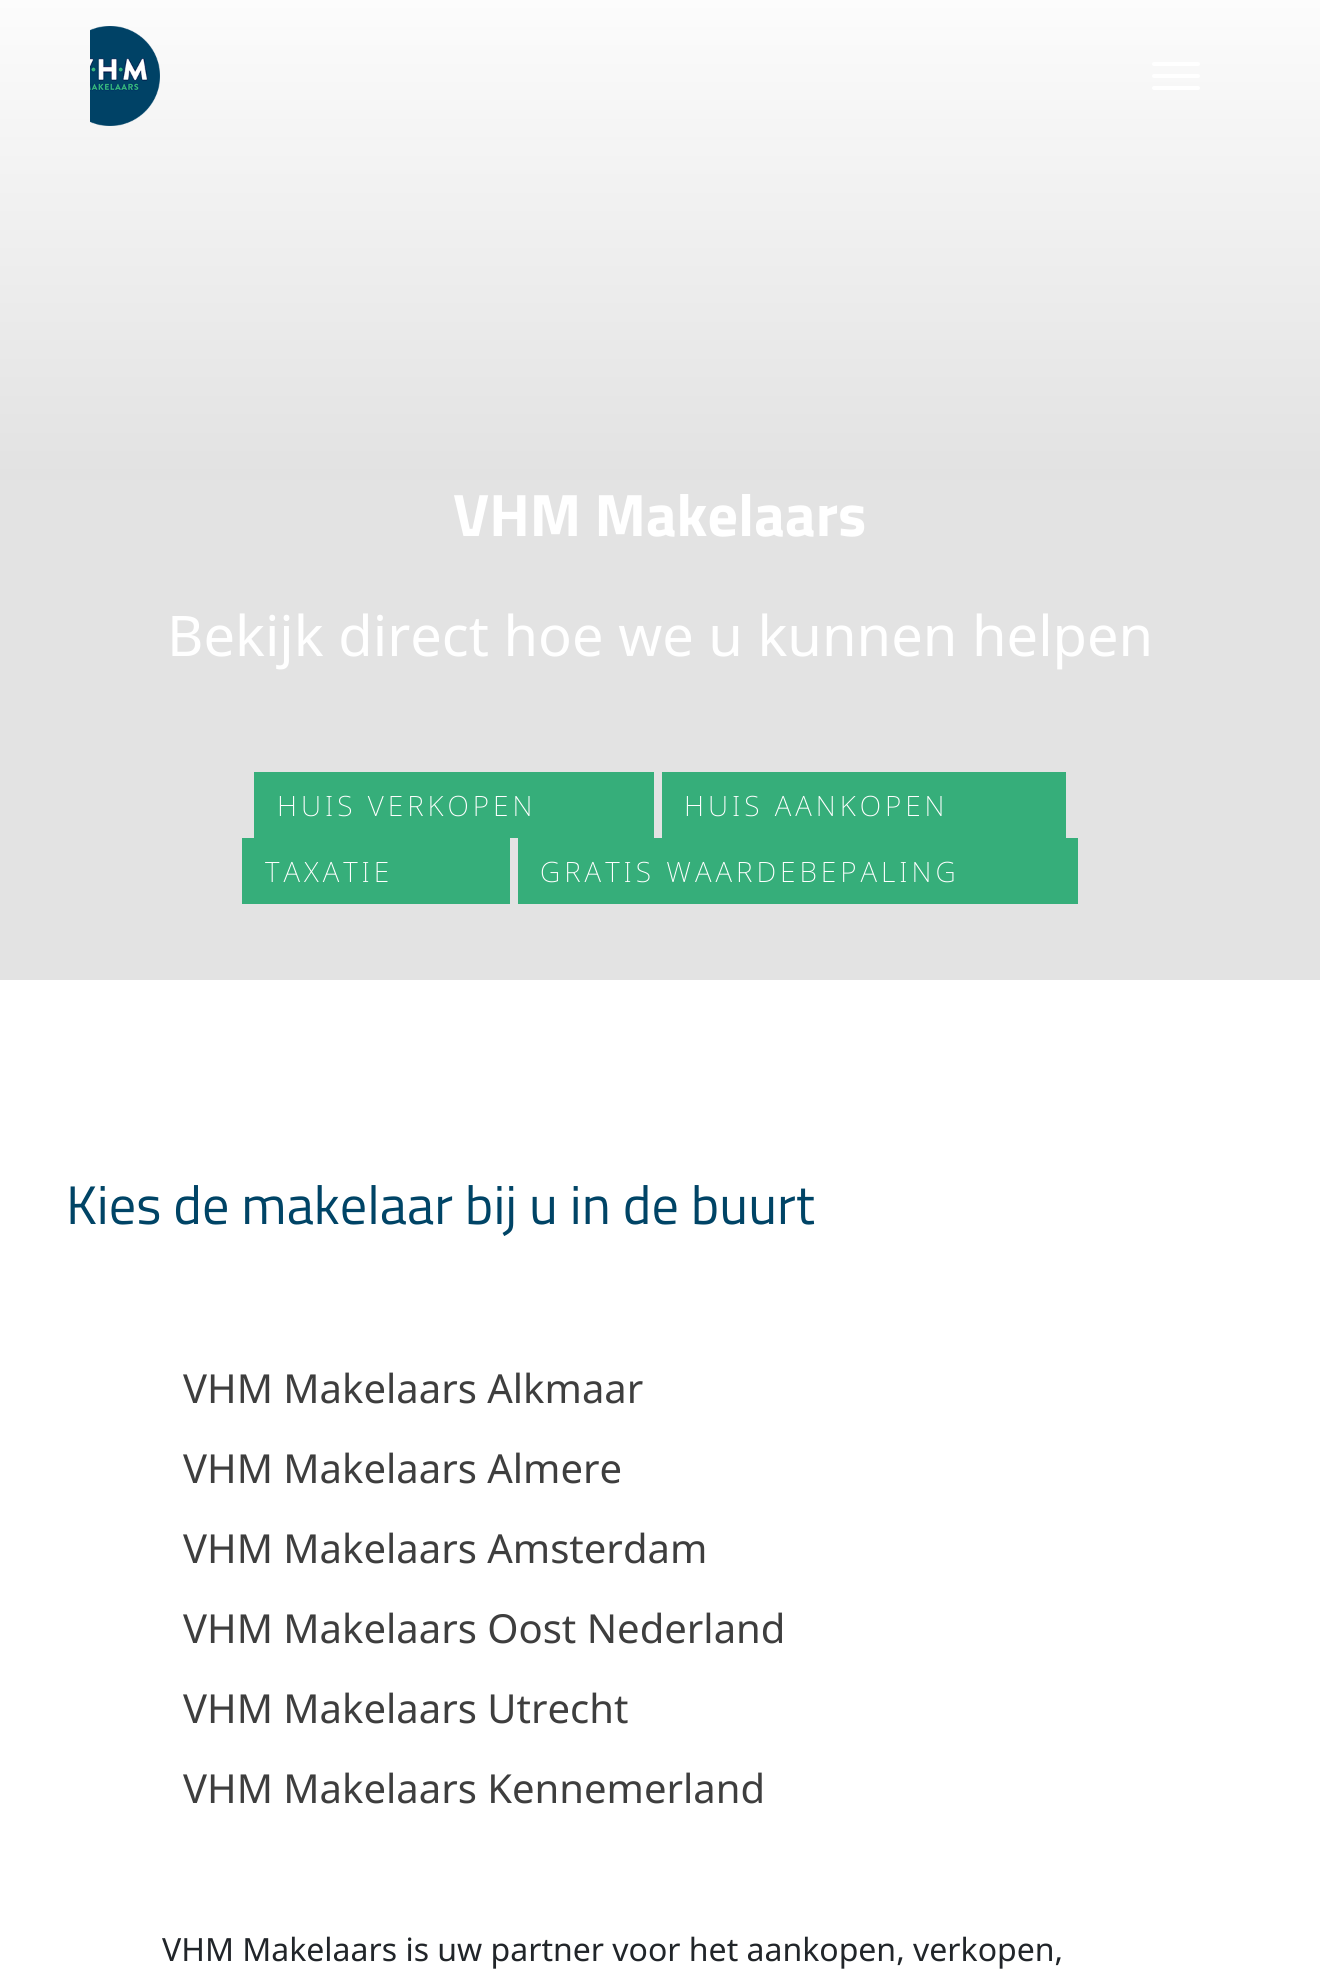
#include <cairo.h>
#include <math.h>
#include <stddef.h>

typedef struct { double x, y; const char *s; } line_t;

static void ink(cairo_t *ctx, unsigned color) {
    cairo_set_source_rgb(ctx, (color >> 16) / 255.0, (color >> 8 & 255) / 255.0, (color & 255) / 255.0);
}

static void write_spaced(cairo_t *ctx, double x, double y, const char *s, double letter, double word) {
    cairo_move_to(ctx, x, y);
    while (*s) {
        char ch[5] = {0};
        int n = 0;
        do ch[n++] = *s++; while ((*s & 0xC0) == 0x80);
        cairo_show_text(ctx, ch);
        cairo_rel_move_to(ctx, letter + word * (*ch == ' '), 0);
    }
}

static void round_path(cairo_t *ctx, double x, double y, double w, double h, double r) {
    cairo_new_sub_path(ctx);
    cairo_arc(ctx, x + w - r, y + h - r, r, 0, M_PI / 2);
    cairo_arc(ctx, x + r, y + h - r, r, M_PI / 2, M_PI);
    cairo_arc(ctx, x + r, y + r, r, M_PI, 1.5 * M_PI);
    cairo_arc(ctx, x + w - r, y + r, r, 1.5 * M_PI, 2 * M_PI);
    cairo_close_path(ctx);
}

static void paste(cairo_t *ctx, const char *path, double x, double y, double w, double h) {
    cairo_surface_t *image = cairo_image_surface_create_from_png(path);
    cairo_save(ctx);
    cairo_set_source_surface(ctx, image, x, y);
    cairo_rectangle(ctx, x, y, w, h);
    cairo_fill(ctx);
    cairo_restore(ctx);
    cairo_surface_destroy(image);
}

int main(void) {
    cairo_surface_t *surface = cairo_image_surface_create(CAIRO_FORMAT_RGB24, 1320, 1977);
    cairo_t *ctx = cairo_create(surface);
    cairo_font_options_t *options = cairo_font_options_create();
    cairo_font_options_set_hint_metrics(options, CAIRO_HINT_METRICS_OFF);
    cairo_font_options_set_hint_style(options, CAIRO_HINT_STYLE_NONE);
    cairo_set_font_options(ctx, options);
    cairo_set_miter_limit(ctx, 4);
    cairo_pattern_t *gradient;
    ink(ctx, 0xFFFFFF);
    cairo_paint(ctx);
    gradient = cairo_pattern_create_linear(660, 0, 660, 480);
    cairo_pattern_add_color_stop_rgba(gradient, 0, 0.988, 0.988, 0.988, 1);
    cairo_pattern_add_color_stop_rgba(gradient, 1, 0.886, 0.886, 0.886, 1);
    cairo_set_source(ctx, gradient);
    cairo_pattern_destroy(gradient);
    cairo_rectangle(ctx, 0, 0, 1320, 480);
    cairo_fill(ctx);
    paste(ctx, "media/1.png", 90, 26, 70, 100);
    ink(ctx, 0xFFFFFF);
    round_path(ctx, 1152, 62, 48, 4, 2);
    cairo_fill(ctx);
    round_path(ctx, 1152, 74, 48, 4, 2);
    cairo_fill(ctx);
    round_path(ctx, 1152, 86, 48, 4, 2);
    cairo_fill(ctx);
    ink(ctx, 0xE3E3E3);
    cairo_rectangle(ctx, 0, 480, 1320, 500);
    cairo_fill(ctx);
    cairo_select_font_face(ctx, "Titillium Web", CAIRO_FONT_SLANT_NORMAL, CAIRO_FONT_WEIGHT_BOLD);
    cairo_set_font_size(ctx, 60);
    ink(ctx, 0xFFFFFF);
    cairo_move_to(ctx, 453, 536);
    cairo_show_text(ctx, "VHM Makelaars");
    cairo_select_font_face(ctx, "Noto Sans", CAIRO_FONT_SLANT_NORMAL, CAIRO_FONT_WEIGHT_NORMAL);
    cairo_set_font_size(ctx, 56);
    cairo_move_to(ctx, 167, 656);
    cairo_show_text(ctx, "Bekijk direct hoe we u kunnen helpen");
    ink(ctx, 0x36AE7A);
    cairo_rectangle(ctx, 254, 772, 400, 66);
    cairo_fill(ctx);
    cairo_select_font_face(ctx, "Noto Sans ExtraLight", CAIRO_FONT_SLANT_NORMAL, CAIRO_FONT_WEIGHT_NORMAL);
    cairo_set_font_size(ctx, 28);
    ink(ctx, 0xFFFFFF);
    write_spaced(ctx, 277, 816, "HUIS VERKOPEN", 4, 0);
    ink(ctx, 0x36AE7A);
    cairo_rectangle(ctx, 662, 772, 404, 66);
    cairo_fill(ctx);
    ink(ctx, 0xFFFFFF);
    write_spaced(ctx, 684, 816, "HUIS AANKOPEN", 4, 0);
    ink(ctx, 0x36AE7A);
    cairo_rectangle(ctx, 242, 838, 268, 66);
    cairo_fill(ctx);
    ink(ctx, 0xFFFFFF);
    write_spaced(ctx, 265, 882, "TAXATIE", 4, 0);
    ink(ctx, 0x36AE7A);
    cairo_rectangle(ctx, 518, 838, 560, 66);
    cairo_fill(ctx);
    ink(ctx, 0xFFFFFF);
    write_spaced(ctx, 540, 882, "GRATIS WAARDEBEPALING", 4, 0);
    cairo_select_font_face(ctx, "Titillium Web", CAIRO_FONT_SLANT_NORMAL, CAIRO_FONT_WEIGHT_NORMAL);
    cairo_set_font_size(ctx, 54.25);
    ink(ctx, 0x004466);
    cairo_move_to(ctx, 66, 1224);
    cairo_show_text(ctx, "Kies de makelaar bij u in de buurt");
    cairo_select_font_face(ctx, "Noto Sans", CAIRO_FONT_SLANT_NORMAL, CAIRO_FONT_WEIGHT_NORMAL);
    cairo_set_font_size(ctx, 40);
    ink(ctx, 0x3E3E3E);
    {
        static const line_t items[] = {
            {183, 1403, "VHM Makelaars Alkmaar"},
            {183, 1483, "VHM Makelaars Almere"},
            {183, 1563, "VHM Makelaars Amsterdam"},
            {183, 1643, "VHM Makelaars Oost Nederland"},
            {183, 1723, "VHM Makelaars Utrecht"},
            {183, 1803, "VHM Makelaars Kennemerland"},
        };
        for (size_t i = 0; i < sizeof items / sizeof *items; i++) {
            cairo_move_to(ctx, items[i].x, items[i].y);
            cairo_show_text(ctx, items[i].s);
        }
    }
    cairo_set_font_size(ctx, 32);
    ink(ctx, 0x212529);
    cairo_move_to(ctx, 162, 1961);
    cairo_show_text(ctx, "VHM Makelaars is uw partner voor het aankopen, verkopen,");
    cairo_surface_write_to_png(surface, "image.png");
    cairo_font_options_destroy(options);
    cairo_destroy(ctx);
    cairo_surface_destroy(surface);
    return 0;
}
